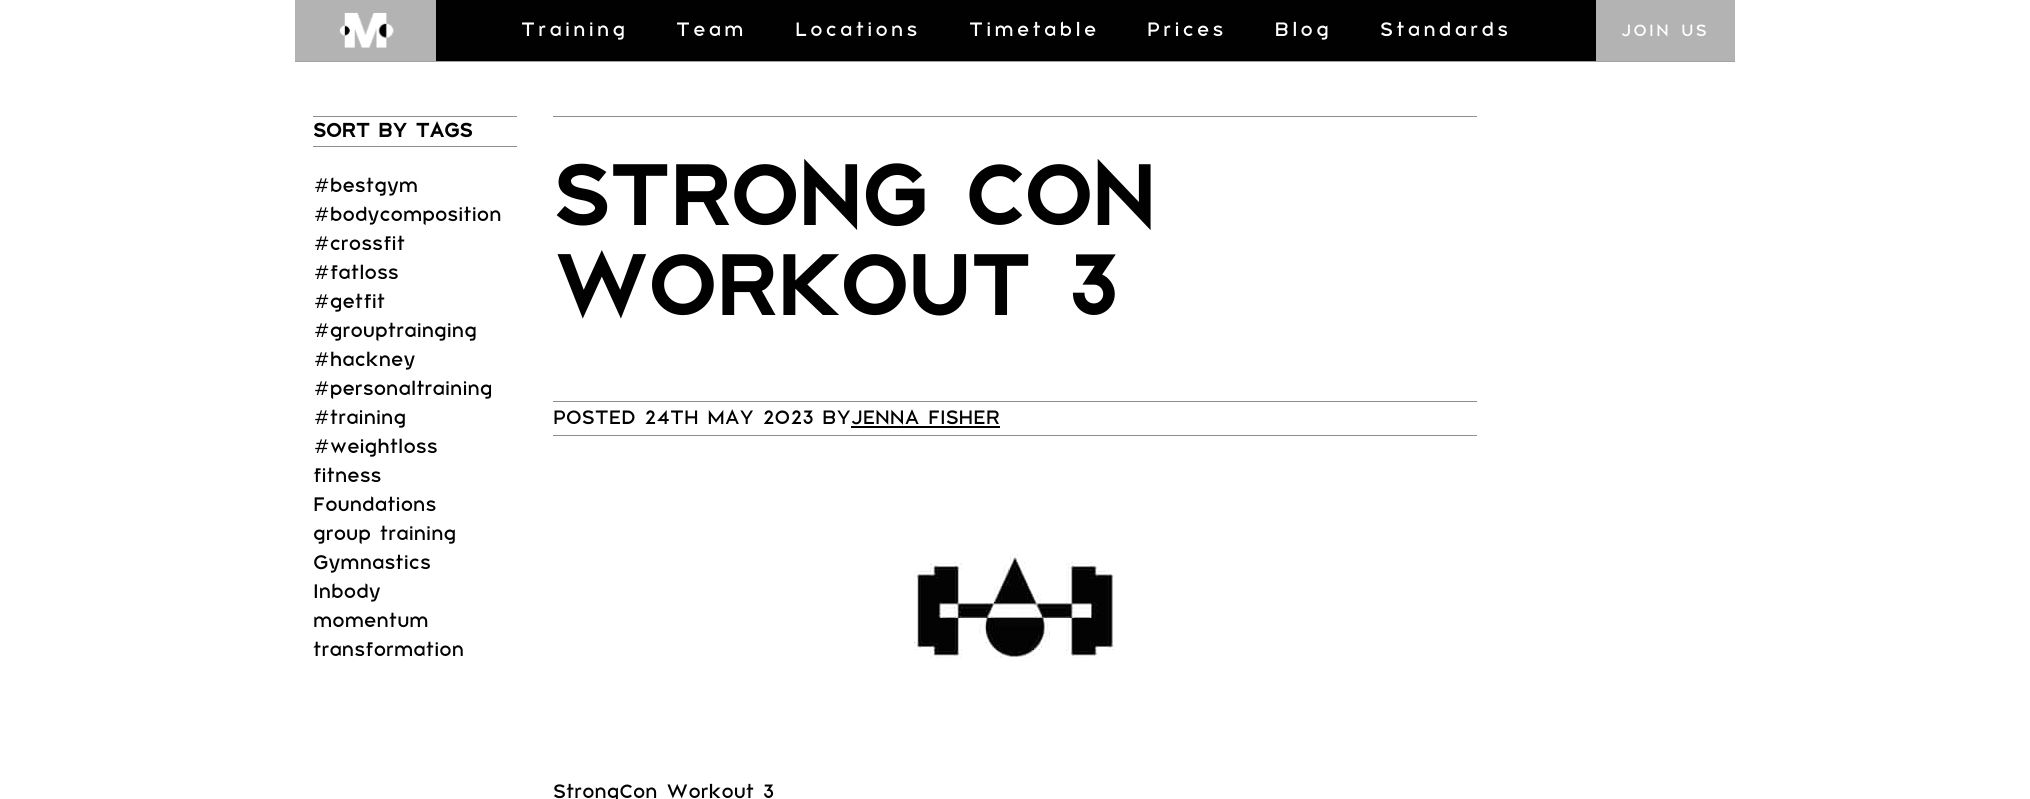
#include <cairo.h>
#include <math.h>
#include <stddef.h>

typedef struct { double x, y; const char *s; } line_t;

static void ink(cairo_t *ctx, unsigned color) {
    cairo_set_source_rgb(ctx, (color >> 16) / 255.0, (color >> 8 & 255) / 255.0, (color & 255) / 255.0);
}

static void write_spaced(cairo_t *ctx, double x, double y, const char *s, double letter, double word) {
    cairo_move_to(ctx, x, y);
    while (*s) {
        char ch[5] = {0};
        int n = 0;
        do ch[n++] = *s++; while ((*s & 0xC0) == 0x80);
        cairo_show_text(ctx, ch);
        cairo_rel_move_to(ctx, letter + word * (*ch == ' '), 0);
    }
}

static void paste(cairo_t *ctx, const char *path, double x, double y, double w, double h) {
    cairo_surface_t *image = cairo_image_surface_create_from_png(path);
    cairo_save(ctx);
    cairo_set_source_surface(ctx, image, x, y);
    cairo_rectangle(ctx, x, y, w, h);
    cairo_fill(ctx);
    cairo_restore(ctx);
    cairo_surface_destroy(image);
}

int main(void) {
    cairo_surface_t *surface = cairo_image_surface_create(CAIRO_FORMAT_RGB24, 2030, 799);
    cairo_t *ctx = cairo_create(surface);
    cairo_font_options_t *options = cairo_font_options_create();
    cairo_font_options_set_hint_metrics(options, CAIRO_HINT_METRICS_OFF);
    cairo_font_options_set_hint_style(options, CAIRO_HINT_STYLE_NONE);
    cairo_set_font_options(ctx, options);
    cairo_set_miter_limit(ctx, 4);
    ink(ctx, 0xFFFFFF);
    cairo_paint(ctx);
    ink(ctx, 0xB3B3B3);
    cairo_rectangle(ctx, 295, 0, 1440, 61);
    cairo_fill(ctx);
    ink(ctx, 0xA2A2A2);
    cairo_rectangle(ctx, 295, 61, 1440, 1);
    cairo_fill(ctx);
    paste(ctx, "media/1.png", 339, 12, 55, 36);
    ink(ctx, 0x010101);
    cairo_rectangle(ctx, 436, 0, 1160, 61);
    cairo_fill(ctx);
    cairo_select_font_face(ctx, "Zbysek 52 Medium", CAIRO_FONT_SLANT_NORMAL, CAIRO_FONT_WEIGHT_NORMAL);
    cairo_set_font_size(ctx, 20.8);
    ink(ctx, 0xFFFFFF);
    {
        static const line_t items[] = {
            {521, 36, "Training"},
            {676, 36, "Team"},
            {795, 36, "Locations"},
            {969, 36, "Timetable"},
            {1147, 36, "Prices"},
            {1275, 36, "Blog"},
            {1380, 36, "Standards"},
        };
        for (size_t i = 0; i < sizeof items / sizeof *items; i++) {
            write_spaced(ctx, items[i].x, items[i].y, items[i].s, 3.25, 0);
        }
    }
    cairo_set_font_size(ctx, 17.5);
    write_spaced(ctx, 1621, 36, "JOIN US", 2.5, 0);
    ink(ctx, 0x8D8D8C);
    cairo_rectangle(ctx, 313, 116, 204, 1);
    cairo_fill(ctx);
    cairo_rectangle(ctx, 313, 146, 204, 1);
    cairo_fill(ctx);
    cairo_select_font_face(ctx, "Zbysek 52", CAIRO_FONT_SLANT_NORMAL, CAIRO_FONT_WEIGHT_BOLD);
    cairo_set_font_size(ctx, 20.8);
    ink(ctx, 0x010101);
    cairo_move_to(ctx, 313, 137);
    cairo_show_text(ctx, "SORT BY TAGS");
    cairo_select_font_face(ctx, "Zbysek 52 Medium", CAIRO_FONT_SLANT_NORMAL, CAIRO_FONT_WEIGHT_NORMAL);
    cairo_set_font_size(ctx, 21);
    {
        static const line_t items[] = {
            {313, 192, "#bestgym"},
            {313, 221, "#bodycomposition"},
            {313, 250, "#crossfit"},
            {313, 279, "#fatloss"},
            {313, 308, "#getfit"},
            {313, 337, "#grouptrainging"},
            {313, 366, "#hackney"},
            {313, 395, "#personaltraining"},
            {313, 424, "#training"},
            {313, 453, "#weightloss"},
            {313, 482, "fitness"},
            {313, 511, "Foundations"},
            {313, 540, "group training"},
            {313, 569, "Gymnastics"},
            {313, 598, "Inbody"},
            {313, 627, "momentum"},
            {313, 656, "transformation"},
        };
        for (size_t i = 0; i < sizeof items / sizeof *items; i++) {
            cairo_move_to(ctx, items[i].x, items[i].y);
            cairo_show_text(ctx, items[i].s);
        }
    }
    ink(ctx, 0x8D8D8C);
    cairo_rectangle(ctx, 553, 116, 924, 1);
    cairo_fill(ctx);
    cairo_select_font_face(ctx, "Zbysek 52", CAIRO_FONT_SLANT_NORMAL, CAIRO_FONT_WEIGHT_BOLD);
    cairo_set_font_size(ctx, 89.5);
    ink(ctx, 0x010101);
    cairo_move_to(ctx, 553, 225);
    cairo_show_text(ctx, "STRONG CON");
    cairo_move_to(ctx, 553, 315);
    cairo_show_text(ctx, "WORKOUT 3");
    ink(ctx, 0x8D8D8C);
    cairo_rectangle(ctx, 553, 401, 924, 1);
    cairo_fill(ctx);
    cairo_rectangle(ctx, 553, 435, 924, 1);
    cairo_fill(ctx);
    cairo_select_font_face(ctx, "Zbysek 52 Medium", CAIRO_FONT_SLANT_NORMAL, CAIRO_FONT_WEIGHT_NORMAL);
    cairo_set_font_size(ctx, 20.8);
    ink(ctx, 0x010101);
    cairo_move_to(ctx, 553, 424);
    cairo_show_text(ctx, "POSTED 24TH MAY 2023 BYJENNA FISHER");
    cairo_rectangle(ctx, 851, 426, 149, 2);
    cairo_fill(ctx);
    paste(ctx, "media/2.png", 914, 554, 200, 104);
    cairo_move_to(ctx, 553, 798);
    cairo_show_text(ctx, "StrongCon Workout 3");
    cairo_surface_write_to_png(surface, "image.png");
    cairo_font_options_destroy(options);
    cairo_destroy(ctx);
    cairo_surface_destroy(surface);
    return 0;
}
